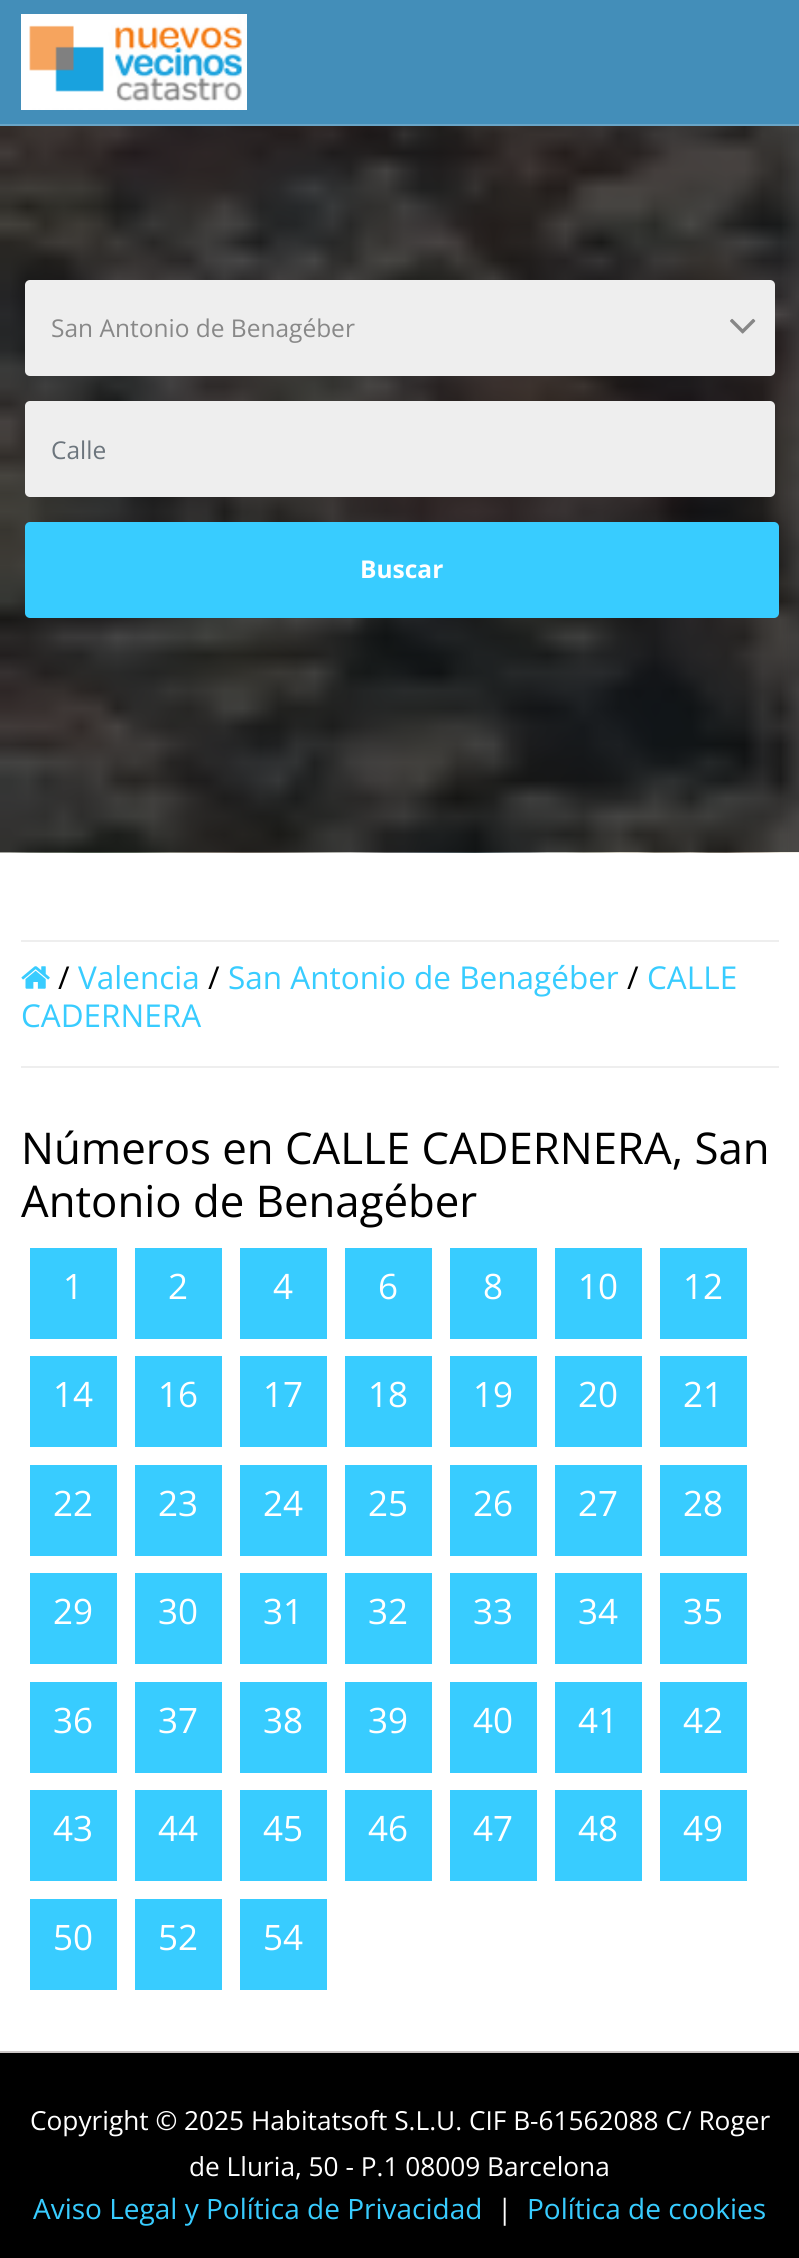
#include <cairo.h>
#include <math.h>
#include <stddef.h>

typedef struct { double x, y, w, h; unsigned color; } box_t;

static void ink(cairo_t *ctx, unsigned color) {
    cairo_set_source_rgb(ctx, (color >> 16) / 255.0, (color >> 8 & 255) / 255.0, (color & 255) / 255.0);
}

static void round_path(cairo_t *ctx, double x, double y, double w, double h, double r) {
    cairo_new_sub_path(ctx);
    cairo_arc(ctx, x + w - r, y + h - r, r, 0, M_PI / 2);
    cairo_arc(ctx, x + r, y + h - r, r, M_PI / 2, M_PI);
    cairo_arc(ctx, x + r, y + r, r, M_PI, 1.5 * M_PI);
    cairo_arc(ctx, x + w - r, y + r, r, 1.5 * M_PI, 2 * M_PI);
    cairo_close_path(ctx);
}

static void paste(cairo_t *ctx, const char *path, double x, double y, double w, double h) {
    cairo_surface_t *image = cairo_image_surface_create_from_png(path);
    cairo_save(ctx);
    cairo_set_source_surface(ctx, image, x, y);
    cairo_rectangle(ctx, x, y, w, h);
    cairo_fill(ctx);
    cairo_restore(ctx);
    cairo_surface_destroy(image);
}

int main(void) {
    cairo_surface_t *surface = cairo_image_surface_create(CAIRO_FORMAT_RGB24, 799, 2258);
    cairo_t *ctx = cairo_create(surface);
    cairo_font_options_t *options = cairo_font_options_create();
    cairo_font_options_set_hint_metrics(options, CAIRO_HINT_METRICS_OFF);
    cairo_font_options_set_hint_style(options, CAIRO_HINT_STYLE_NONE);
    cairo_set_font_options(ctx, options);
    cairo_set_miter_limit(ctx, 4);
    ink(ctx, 0xFFFFFF);
    cairo_paint(ctx);
    {
        static const box_t items[] = {
            {781, 126, 18, 726, 0x4D4D4D},
            {0, 0, 799, 124, 0x438EB9},
            {0, 124, 799, 2, 0x69A5C7},
        };
        for (size_t i = 0; i < sizeof items / sizeof *items; i++) {
            ink(ctx, items[i].color);
            cairo_rectangle(ctx, items[i].x, items[i].y, items[i].w, items[i].h);
            cairo_fill(ctx);
        }
    }
    paste(ctx, "media/1.png", 21, 14, 226, 96);
    paste(ctx, "media/2.png", 0, 126, 799, 727);
    ink(ctx, 0xEEEEEE);
    round_path(ctx, 25, 280, 750, 96, 5);
    cairo_fill(ctx);
    cairo_select_font_face(ctx, "Open Sans", CAIRO_FONT_SLANT_NORMAL, CAIRO_FONT_WEIGHT_NORMAL);
    cairo_set_font_size(ctx, 24.5);
    ink(ctx, 0x888888);
    cairo_move_to(ctx, 51, 337);
    cairo_show_text(ctx, "San Antonio de Benagéber");
    paste(ctx, "media/3.png", 730, 318, 26, 16);
    ink(ctx, 0xEEEEEE);
    round_path(ctx, 25, 401, 750, 96, 5);
    cairo_fill(ctx);
    ink(ctx, 0x6C757D);
    cairo_move_to(ctx, 51, 459);
    cairo_show_text(ctx, "Calle");
    ink(ctx, 0x38CCFF);
    round_path(ctx, 25, 522, 754, 96, 5);
    cairo_fill(ctx);
    cairo_select_font_face(ctx, "Open Sans", CAIRO_FONT_SLANT_NORMAL, CAIRO_FONT_WEIGHT_BOLD);
    ink(ctx, 0xFFFFFF);
    cairo_move_to(ctx, 360, 578);
    cairo_show_text(ctx, "Buscar");
    ink(ctx, 0xEEEEEE);
    cairo_rectangle(ctx, 21, 940, 758, 2);
    cairo_fill(ctx);
    cairo_rectangle(ctx, 21, 1066, 758, 2);
    cairo_fill(ctx);
    paste(ctx, "media/4.png", 21, 966, 29, 23);
    cairo_select_font_face(ctx, "Open Sans", CAIRO_FONT_SLANT_NORMAL, CAIRO_FONT_WEIGHT_NORMAL);
    cairo_set_font_size(ctx, 31.5);
    ink(ctx, 0x000000);
    cairo_move_to(ctx, 58, 989);
    cairo_show_text(ctx, "/");
    ink(ctx, 0x38CCFF);
    cairo_move_to(ctx, 78, 989);
    cairo_show_text(ctx, "Valencia");
    ink(ctx, 0x000000);
    cairo_move_to(ctx, 208, 989);
    cairo_show_text(ctx, "/");
    ink(ctx, 0x38CCFF);
    cairo_move_to(ctx, 228, 989);
    cairo_show_text(ctx, "San Antonio de Benagéber");
    ink(ctx, 0x000000);
    cairo_move_to(ctx, 627, 989);
    cairo_show_text(ctx, "/");
    ink(ctx, 0x38CCFF);
    cairo_move_to(ctx, 647, 989);
    cairo_show_text(ctx, "CALLE");
    cairo_move_to(ctx, 21, 1027);
    cairo_show_text(ctx, "CADERNERA");
    cairo_set_font_size(ctx, 43.75);
    ink(ctx, 0x000000);
    cairo_move_to(ctx, 21, 1164);
    cairo_show_text(ctx, "Números en CALLE CADERNERA, San");
    cairo_move_to(ctx, 21, 1217);
    cairo_show_text(ctx, "Antonio de Benagéber");
    ink(ctx, 0x38CCFF);
    cairo_rectangle(ctx, 30, 1248, 87, 91);
    cairo_fill(ctx);
    cairo_set_font_size(ctx, 35);
    ink(ctx, 0xFFFFFF);
    cairo_move_to(ctx, 63, 1299);
    cairo_show_text(ctx, "1");
    ink(ctx, 0x38CCFF);
    cairo_rectangle(ctx, 135, 1248, 87, 91);
    cairo_fill(ctx);
    ink(ctx, 0xFFFFFF);
    cairo_move_to(ctx, 168, 1299);
    cairo_show_text(ctx, "2");
    ink(ctx, 0x38CCFF);
    cairo_rectangle(ctx, 240, 1248, 87, 91);
    cairo_fill(ctx);
    ink(ctx, 0xFFFFFF);
    cairo_move_to(ctx, 273, 1299);
    cairo_show_text(ctx, "4");
    ink(ctx, 0x38CCFF);
    cairo_rectangle(ctx, 345, 1248, 87, 91);
    cairo_fill(ctx);
    ink(ctx, 0xFFFFFF);
    cairo_move_to(ctx, 378, 1299);
    cairo_show_text(ctx, "6");
    ink(ctx, 0x38CCFF);
    cairo_rectangle(ctx, 450, 1248, 87, 91);
    cairo_fill(ctx);
    ink(ctx, 0xFFFFFF);
    cairo_move_to(ctx, 483, 1299);
    cairo_show_text(ctx, "8");
    ink(ctx, 0x38CCFF);
    cairo_rectangle(ctx, 555, 1248, 87, 91);
    cairo_fill(ctx);
    ink(ctx, 0xFFFFFF);
    cairo_move_to(ctx, 578, 1299);
    cairo_show_text(ctx, "10");
    ink(ctx, 0x38CCFF);
    cairo_rectangle(ctx, 660, 1248, 87, 91);
    cairo_fill(ctx);
    ink(ctx, 0xFFFFFF);
    cairo_move_to(ctx, 683, 1299);
    cairo_show_text(ctx, "12");
    ink(ctx, 0x38CCFF);
    cairo_rectangle(ctx, 30, 1356, 87, 91);
    cairo_fill(ctx);
    ink(ctx, 0xFFFFFF);
    cairo_move_to(ctx, 53, 1407);
    cairo_show_text(ctx, "14");
    ink(ctx, 0x38CCFF);
    cairo_rectangle(ctx, 135, 1356, 87, 91);
    cairo_fill(ctx);
    ink(ctx, 0xFFFFFF);
    cairo_move_to(ctx, 158, 1407);
    cairo_show_text(ctx, "16");
    ink(ctx, 0x38CCFF);
    cairo_rectangle(ctx, 240, 1356, 87, 91);
    cairo_fill(ctx);
    ink(ctx, 0xFFFFFF);
    cairo_move_to(ctx, 263, 1407);
    cairo_show_text(ctx, "17");
    ink(ctx, 0x38CCFF);
    cairo_rectangle(ctx, 345, 1356, 87, 91);
    cairo_fill(ctx);
    ink(ctx, 0xFFFFFF);
    cairo_move_to(ctx, 368, 1407);
    cairo_show_text(ctx, "18");
    ink(ctx, 0x38CCFF);
    cairo_rectangle(ctx, 450, 1356, 87, 91);
    cairo_fill(ctx);
    ink(ctx, 0xFFFFFF);
    cairo_move_to(ctx, 473, 1407);
    cairo_show_text(ctx, "19");
    ink(ctx, 0x38CCFF);
    cairo_rectangle(ctx, 555, 1356, 87, 91);
    cairo_fill(ctx);
    ink(ctx, 0xFFFFFF);
    cairo_move_to(ctx, 578, 1407);
    cairo_show_text(ctx, "20");
    ink(ctx, 0x38CCFF);
    cairo_rectangle(ctx, 660, 1356, 87, 91);
    cairo_fill(ctx);
    ink(ctx, 0xFFFFFF);
    cairo_move_to(ctx, 683, 1407);
    cairo_show_text(ctx, "21");
    ink(ctx, 0x38CCFF);
    cairo_rectangle(ctx, 30, 1465, 87, 91);
    cairo_fill(ctx);
    ink(ctx, 0xFFFFFF);
    cairo_move_to(ctx, 53, 1516);
    cairo_show_text(ctx, "22");
    ink(ctx, 0x38CCFF);
    cairo_rectangle(ctx, 135, 1465, 87, 91);
    cairo_fill(ctx);
    ink(ctx, 0xFFFFFF);
    cairo_move_to(ctx, 158, 1516);
    cairo_show_text(ctx, "23");
    ink(ctx, 0x38CCFF);
    cairo_rectangle(ctx, 240, 1465, 87, 91);
    cairo_fill(ctx);
    ink(ctx, 0xFFFFFF);
    cairo_move_to(ctx, 263, 1516);
    cairo_show_text(ctx, "24");
    ink(ctx, 0x38CCFF);
    cairo_rectangle(ctx, 345, 1465, 87, 91);
    cairo_fill(ctx);
    ink(ctx, 0xFFFFFF);
    cairo_move_to(ctx, 368, 1516);
    cairo_show_text(ctx, "25");
    ink(ctx, 0x38CCFF);
    cairo_rectangle(ctx, 450, 1465, 87, 91);
    cairo_fill(ctx);
    ink(ctx, 0xFFFFFF);
    cairo_move_to(ctx, 473, 1516);
    cairo_show_text(ctx, "26");
    ink(ctx, 0x38CCFF);
    cairo_rectangle(ctx, 555, 1465, 87, 91);
    cairo_fill(ctx);
    ink(ctx, 0xFFFFFF);
    cairo_move_to(ctx, 578, 1516);
    cairo_show_text(ctx, "27");
    ink(ctx, 0x38CCFF);
    cairo_rectangle(ctx, 660, 1465, 87, 91);
    cairo_fill(ctx);
    ink(ctx, 0xFFFFFF);
    cairo_move_to(ctx, 683, 1516);
    cairo_show_text(ctx, "28");
    ink(ctx, 0x38CCFF);
    cairo_rectangle(ctx, 30, 1573, 87, 91);
    cairo_fill(ctx);
    ink(ctx, 0xFFFFFF);
    cairo_move_to(ctx, 53, 1624);
    cairo_show_text(ctx, "29");
    ink(ctx, 0x38CCFF);
    cairo_rectangle(ctx, 135, 1573, 87, 91);
    cairo_fill(ctx);
    ink(ctx, 0xFFFFFF);
    cairo_move_to(ctx, 158, 1624);
    cairo_show_text(ctx, "30");
    ink(ctx, 0x38CCFF);
    cairo_rectangle(ctx, 240, 1573, 87, 91);
    cairo_fill(ctx);
    ink(ctx, 0xFFFFFF);
    cairo_move_to(ctx, 263, 1624);
    cairo_show_text(ctx, "31");
    ink(ctx, 0x38CCFF);
    cairo_rectangle(ctx, 345, 1573, 87, 91);
    cairo_fill(ctx);
    ink(ctx, 0xFFFFFF);
    cairo_move_to(ctx, 368, 1624);
    cairo_show_text(ctx, "32");
    ink(ctx, 0x38CCFF);
    cairo_rectangle(ctx, 450, 1573, 87, 91);
    cairo_fill(ctx);
    ink(ctx, 0xFFFFFF);
    cairo_move_to(ctx, 473, 1624);
    cairo_show_text(ctx, "33");
    ink(ctx, 0x38CCFF);
    cairo_rectangle(ctx, 555, 1573, 87, 91);
    cairo_fill(ctx);
    ink(ctx, 0xFFFFFF);
    cairo_move_to(ctx, 578, 1624);
    cairo_show_text(ctx, "34");
    ink(ctx, 0x38CCFF);
    cairo_rectangle(ctx, 660, 1573, 87, 91);
    cairo_fill(ctx);
    ink(ctx, 0xFFFFFF);
    cairo_move_to(ctx, 683, 1624);
    cairo_show_text(ctx, "35");
    ink(ctx, 0x38CCFF);
    cairo_rectangle(ctx, 30, 1682, 87, 91);
    cairo_fill(ctx);
    ink(ctx, 0xFFFFFF);
    cairo_move_to(ctx, 53, 1733);
    cairo_show_text(ctx, "36");
    ink(ctx, 0x38CCFF);
    cairo_rectangle(ctx, 135, 1682, 87, 91);
    cairo_fill(ctx);
    ink(ctx, 0xFFFFFF);
    cairo_move_to(ctx, 158, 1733);
    cairo_show_text(ctx, "37");
    ink(ctx, 0x38CCFF);
    cairo_rectangle(ctx, 240, 1682, 87, 91);
    cairo_fill(ctx);
    ink(ctx, 0xFFFFFF);
    cairo_move_to(ctx, 263, 1733);
    cairo_show_text(ctx, "38");
    ink(ctx, 0x38CCFF);
    cairo_rectangle(ctx, 345, 1682, 87, 91);
    cairo_fill(ctx);
    ink(ctx, 0xFFFFFF);
    cairo_move_to(ctx, 368, 1733);
    cairo_show_text(ctx, "39");
    ink(ctx, 0x38CCFF);
    cairo_rectangle(ctx, 450, 1682, 87, 91);
    cairo_fill(ctx);
    ink(ctx, 0xFFFFFF);
    cairo_move_to(ctx, 473, 1733);
    cairo_show_text(ctx, "40");
    ink(ctx, 0x38CCFF);
    cairo_rectangle(ctx, 555, 1682, 87, 91);
    cairo_fill(ctx);
    ink(ctx, 0xFFFFFF);
    cairo_move_to(ctx, 578, 1733);
    cairo_show_text(ctx, "41");
    ink(ctx, 0x38CCFF);
    cairo_rectangle(ctx, 660, 1682, 87, 91);
    cairo_fill(ctx);
    ink(ctx, 0xFFFFFF);
    cairo_move_to(ctx, 683, 1733);
    cairo_show_text(ctx, "42");
    ink(ctx, 0x38CCFF);
    cairo_rectangle(ctx, 30, 1790, 87, 91);
    cairo_fill(ctx);
    ink(ctx, 0xFFFFFF);
    cairo_move_to(ctx, 53, 1841);
    cairo_show_text(ctx, "43");
    ink(ctx, 0x38CCFF);
    cairo_rectangle(ctx, 135, 1790, 87, 91);
    cairo_fill(ctx);
    ink(ctx, 0xFFFFFF);
    cairo_move_to(ctx, 158, 1841);
    cairo_show_text(ctx, "44");
    ink(ctx, 0x38CCFF);
    cairo_rectangle(ctx, 240, 1790, 87, 91);
    cairo_fill(ctx);
    ink(ctx, 0xFFFFFF);
    cairo_move_to(ctx, 263, 1841);
    cairo_show_text(ctx, "45");
    ink(ctx, 0x38CCFF);
    cairo_rectangle(ctx, 345, 1790, 87, 91);
    cairo_fill(ctx);
    ink(ctx, 0xFFFFFF);
    cairo_move_to(ctx, 368, 1841);
    cairo_show_text(ctx, "46");
    ink(ctx, 0x38CCFF);
    cairo_rectangle(ctx, 450, 1790, 87, 91);
    cairo_fill(ctx);
    ink(ctx, 0xFFFFFF);
    cairo_move_to(ctx, 473, 1841);
    cairo_show_text(ctx, "47");
    ink(ctx, 0x38CCFF);
    cairo_rectangle(ctx, 555, 1790, 87, 91);
    cairo_fill(ctx);
    ink(ctx, 0xFFFFFF);
    cairo_move_to(ctx, 578, 1841);
    cairo_show_text(ctx, "48");
    ink(ctx, 0x38CCFF);
    cairo_rectangle(ctx, 660, 1790, 87, 91);
    cairo_fill(ctx);
    ink(ctx, 0xFFFFFF);
    cairo_move_to(ctx, 683, 1841);
    cairo_show_text(ctx, "49");
    ink(ctx, 0x38CCFF);
    cairo_rectangle(ctx, 30, 1899, 87, 91);
    cairo_fill(ctx);
    ink(ctx, 0xFFFFFF);
    cairo_move_to(ctx, 53, 1950);
    cairo_show_text(ctx, "50");
    ink(ctx, 0x38CCFF);
    cairo_rectangle(ctx, 135, 1899, 87, 91);
    cairo_fill(ctx);
    ink(ctx, 0xFFFFFF);
    cairo_move_to(ctx, 158, 1950);
    cairo_show_text(ctx, "52");
    ink(ctx, 0x38CCFF);
    cairo_rectangle(ctx, 240, 1899, 87, 91);
    cairo_fill(ctx);
    ink(ctx, 0xFFFFFF);
    cairo_move_to(ctx, 263, 1950);
    cairo_show_text(ctx, "54");
    ink(ctx, 0x000000);
    cairo_rectangle(ctx, 0, 2053, 799, 205);
    cairo_fill(ctx);
    ink(ctx, 0xCCC7C7);
    cairo_rectangle(ctx, 0, 2051, 799, 2);
    cairo_fill(ctx);
    cairo_set_font_size(ctx, 26.25);
    ink(ctx, 0xFFFFFF);
    cairo_move_to(ctx, 30, 2130);
    cairo_show_text(ctx, "Copyright © 2025 Habitatsoft S.L.U. CIF B-61562088 C/ Roger");
    cairo_move_to(ctx, 189, 2176);
    cairo_show_text(ctx, "de Lluria, 50 - P.1 08009 Barcelona");
    cairo_set_font_size(ctx, 28);
    ink(ctx, 0x38CCFF);
    cairo_move_to(ctx, 33, 2219);
    cairo_show_text(ctx, "Aviso Legal y Política de Privacidad");
    ink(ctx, 0xFFFFFF);
    cairo_move_to(ctx, 497, 2219);
    cairo_show_text(ctx, "|");
    ink(ctx, 0x38CCFF);
    cairo_move_to(ctx, 527, 2219);
    cairo_show_text(ctx, "Política de cookies");
    cairo_surface_write_to_png(surface, "image.png");
    cairo_font_options_destroy(options);
    cairo_destroy(ctx);
    cairo_surface_destroy(surface);
    return 0;
}
